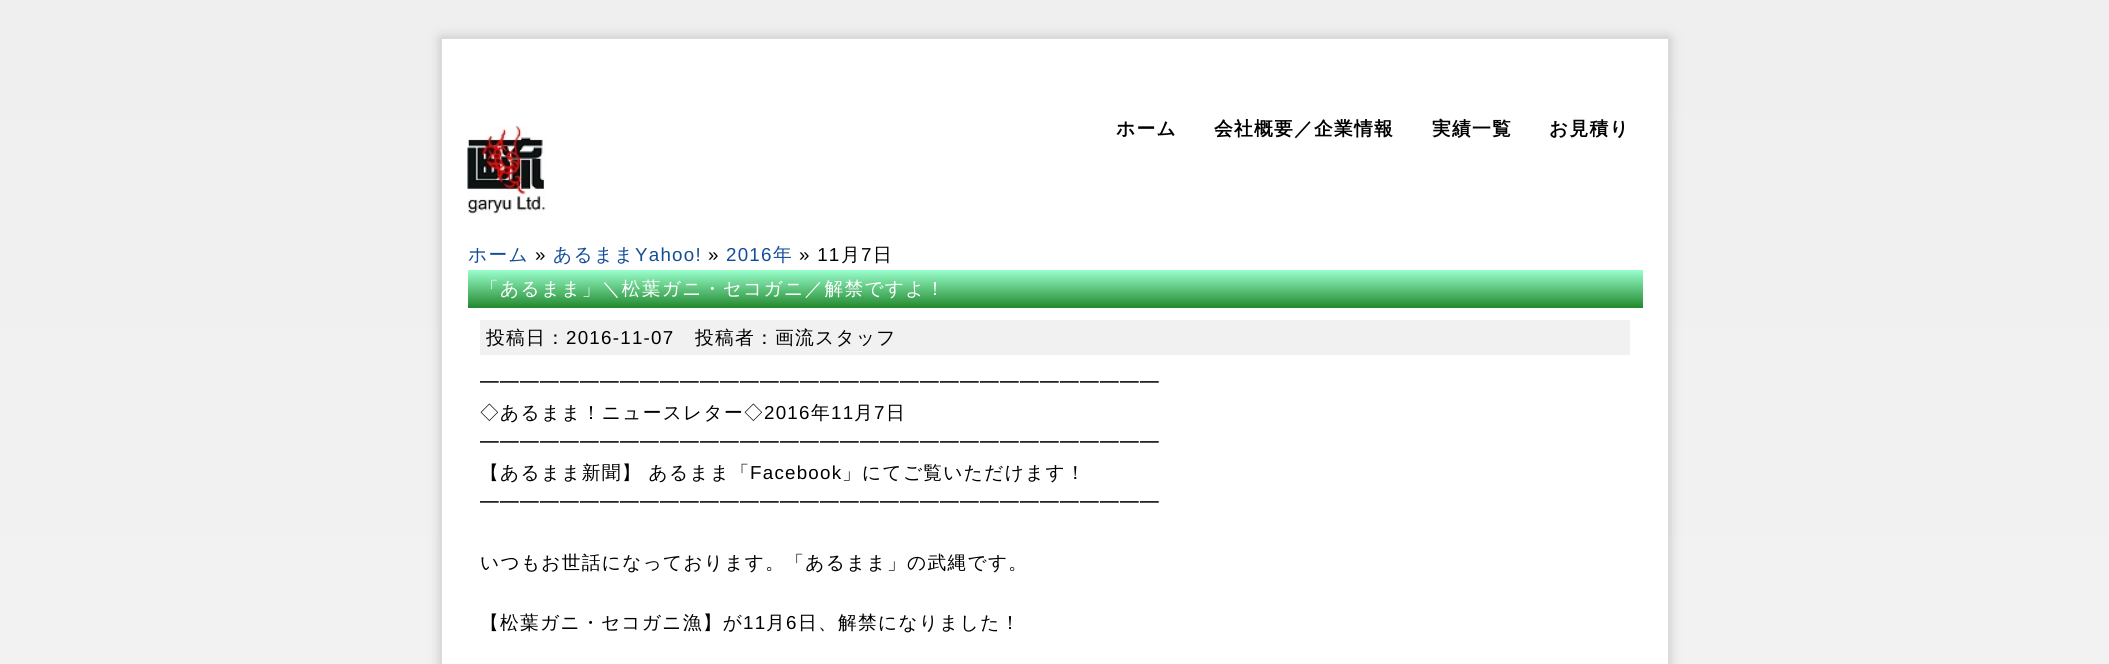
#include <cairo.h>
#include <math.h>
#include <stddef.h>

typedef struct { double x, y; const char *s; } line_t;

static void ink(cairo_t *ctx, unsigned color) {
    cairo_set_source_rgb(ctx, (color >> 16) / 255.0, (color >> 8 & 255) / 255.0, (color & 255) / 255.0);
}

static void write_spaced(cairo_t *ctx, double x, double y, const char *s, double letter, double word) {
    cairo_move_to(ctx, x, y);
    while (*s) {
        char ch[5] = {0};
        int n = 0;
        do ch[n++] = *s++; while ((*s & 0xC0) == 0x80);
        cairo_show_text(ctx, ch);
        cairo_rel_move_to(ctx, letter + word * (*ch == ' '), 0);
    }
}

static void round_path(cairo_t *ctx, double x, double y, double w, double h, double r) {
    cairo_new_sub_path(ctx);
    cairo_arc(ctx, x + w - r, y + h - r, r, 0, M_PI / 2);
    cairo_arc(ctx, x + r, y + h - r, r, M_PI / 2, M_PI);
    cairo_arc(ctx, x + r, y + r, r, M_PI, 1.5 * M_PI);
    cairo_arc(ctx, x + w - r, y + r, r, 1.5 * M_PI, 2 * M_PI);
    cairo_close_path(ctx);
}

static void blur_box(cairo_t *ctx, double x, double y, double w, double h, double r, double blur, double alpha) {
    cairo_push_group_with_content(ctx, CAIRO_CONTENT_ALPHA);
    cairo_set_operator(ctx, CAIRO_OPERATOR_SOURCE);
    for (int i = 15; i >= -15 && fmin(w, h) + blur * i / 3 > 0; i -= 2) {
        double e = blur * i / 6;
        cairo_set_source_rgba(ctx, 0, 0, 0, alpha * erfc((i - 1) / 8.5) / 2);
        round_path(ctx, x - e, y - e, w + 2 * e, h + 2 * e, fmax(0, fmin(r + e + blur * .6, fmin(w, h) / 2 + e)));
        cairo_fill(ctx);
    }
    cairo_pattern_t *soft = cairo_pop_group(ctx);
    cairo_mask(ctx, soft);
    cairo_pattern_destroy(soft);
}

static void paste(cairo_t *ctx, const char *path, double x, double y, double w, double h) {
    cairo_surface_t *image = cairo_image_surface_create_from_png(path);
    cairo_save(ctx);
    cairo_set_source_surface(ctx, image, x, y);
    cairo_rectangle(ctx, x, y, w, h);
    cairo_fill(ctx);
    cairo_restore(ctx);
    cairo_surface_destroy(image);
}

int main(void) {
    cairo_surface_t *surface = cairo_image_surface_create(CAIRO_FORMAT_RGB24, 2109, 664);
    cairo_t *ctx = cairo_create(surface);
    cairo_font_options_t *options = cairo_font_options_create();
    cairo_font_options_set_hint_metrics(options, CAIRO_HINT_METRICS_OFF);
    cairo_font_options_set_hint_style(options, CAIRO_HINT_STYLE_NONE);
    cairo_set_font_options(ctx, options);
    cairo_set_miter_limit(ctx, 4);
    cairo_pattern_t *gradient;
    ink(ctx, 0xFFFFFF);
    cairo_paint(ctx);
    gradient = cairo_pattern_create_linear(1055, 0, 1055, 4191);
    cairo_pattern_add_color_stop_rgba(gradient, 0, 0.937, 0.937, 0.937, 1);
    cairo_pattern_add_color_stop_rgba(gradient, 0.8, 1, 1, 1, 1);
    cairo_set_source(ctx, gradient);
    cairo_pattern_destroy(gradient);
    cairo_rectangle(ctx, 0, 0, 2109, 664);
    cairo_fill(ctx);
    ink(ctx, 0xBFBFBF);
    blur_box(ctx, 441, 38, 1228, 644, 0, 6, 1);
    ink(ctx, 0xFFFFFF);
    cairo_rectangle(ctx, 441.5, 38.5, 1227, 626);
    cairo_fill_preserve(ctx);
    ink(ctx, 0xDDDDDD);
    cairo_set_line_width(ctx, 1);
    cairo_stroke(ctx);
    paste(ctx, "media/1.png", 467, 126, 79, 89);
    cairo_select_font_face(ctx, "WenQuanYi Zen Hei", CAIRO_FONT_SLANT_NORMAL, CAIRO_FONT_WEIGHT_BOLD);
    cairo_set_font_size(ctx, 18.75);
    ink(ctx, 0x000000);
    {
        static const line_t items[] = {
            {1116, 135, "ホーム"},
            {1214, 135, "会社概要／企業情報"},
            {1432, 135, "実績一覧"},
            {1549, 135, "お見積り"},
        };
        for (size_t i = 0; i < sizeof items / sizeof *items; i++) {
            write_spaced(ctx, items[i].x, items[i].y, items[i].s, 1.25, 0);
        }
    }
    cairo_select_font_face(ctx, "WenQuanYi Zen Hei Medium", CAIRO_FONT_SLANT_NORMAL, CAIRO_FONT_WEIGHT_NORMAL);
    ink(ctx, 0x134D99);
    write_spaced(ctx, 468, 261, "ホーム", 1.25, 0);
    cairo_select_font_face(ctx, "Liberation Sans", CAIRO_FONT_SLANT_NORMAL, CAIRO_FONT_WEIGHT_NORMAL);
    ink(ctx, 0x000000);
    write_spaced(ctx, 535, 261, "»", 1.25, 0);
    cairo_select_font_face(ctx, "WenQuanYi Zen Hei Medium", CAIRO_FONT_SLANT_NORMAL, CAIRO_FONT_WEIGHT_NORMAL);
    ink(ctx, 0x134D99);
    write_spaced(ctx, 553, 261, "あるまま", 1.25, 0);
    cairo_select_font_face(ctx, "Liberation Sans", CAIRO_FONT_SLANT_NORMAL, CAIRO_FONT_WEIGHT_NORMAL);
    write_spaced(ctx, 635, 261, "Yahoo!", 1.25, 0);
    ink(ctx, 0x000000);
    write_spaced(ctx, 708, 261, "»", 1.25, 0);
    ink(ctx, 0x134D99);
    write_spaced(ctx, 726, 261, "2016", 1.25, 0);
    cairo_select_font_face(ctx, "WenQuanYi Zen Hei Medium", CAIRO_FONT_SLANT_NORMAL, CAIRO_FONT_WEIGHT_NORMAL);
    write_spaced(ctx, 773, 261, "年", 1.25, 0);
    cairo_select_font_face(ctx, "Liberation Sans", CAIRO_FONT_SLANT_NORMAL, CAIRO_FONT_WEIGHT_NORMAL);
    ink(ctx, 0x000000);
    write_spaced(ctx, 799, 261, "» 11", 1.25, 0);
    cairo_select_font_face(ctx, "WenQuanYi Zen Hei Medium", CAIRO_FONT_SLANT_NORMAL, CAIRO_FONT_WEIGHT_NORMAL);
    write_spaced(ctx, 841, 261, "月", 1.25, 0);
    cairo_select_font_face(ctx, "Liberation Sans", CAIRO_FONT_SLANT_NORMAL, CAIRO_FONT_WEIGHT_NORMAL);
    write_spaced(ctx, 861, 261, "7", 1.25, 0);
    cairo_select_font_face(ctx, "WenQuanYi Zen Hei Medium", CAIRO_FONT_SLANT_NORMAL, CAIRO_FONT_WEIGHT_NORMAL);
    write_spaced(ctx, 873, 261, "日", 1.25, 0);
    gradient = cairo_pattern_create_linear(1055, 270, 1055, 319);
    cairo_pattern_add_color_stop_rgba(gradient, 0, 0.6, 1, 0.8, 1);
    cairo_pattern_add_color_stop_rgba(gradient, 1, 0, 0.4, 0, 1);
    cairo_set_source(ctx, gradient);
    cairo_pattern_destroy(gradient);
    cairo_rectangle(ctx, 468, 270, 1175, 38);
    cairo_fill(ctx);
    ink(ctx, 0xFFFFFF);
    write_spaced(ctx, 480, 295, "「あるまま」＼松葉ガニ・セコガニ／解禁ですよ！", 1.25, 0);
    ink(ctx, 0xF1F1F1);
    cairo_rectangle(ctx, 480, 320, 1150, 35);
    cairo_fill(ctx);
    ink(ctx, 0x000000);
    write_spaced(ctx, 486, 344, "投稿日：", 1.25, 0);
    cairo_select_font_face(ctx, "Liberation Sans", CAIRO_FONT_SLANT_NORMAL, CAIRO_FONT_WEIGHT_NORMAL);
    write_spaced(ctx, 566, 344, "2016-11-07", 1.25, 0);
    cairo_select_font_face(ctx, "WenQuanYi Zen Hei Medium", CAIRO_FONT_SLANT_NORMAL, CAIRO_FONT_WEIGHT_NORMAL);
    {
        static const line_t items[] = {
            {695, 344, "投稿者：画流スタッフ"},
            {480, 389, "━━━━━━━━━━━━━━━━━━━━━━━━━━━━━━━━━━"},
            {480, 419, "◇あるまま！ニュースレター◇"},
        };
        for (size_t i = 0; i < sizeof items / sizeof *items; i++) {
            write_spaced(ctx, items[i].x, items[i].y, items[i].s, 1.25, 0);
        }
    }
    cairo_select_font_face(ctx, "Liberation Sans", CAIRO_FONT_SLANT_NORMAL, CAIRO_FONT_WEIGHT_NORMAL);
    write_spaced(ctx, 764, 419, "2016", 1.25, 0);
    cairo_select_font_face(ctx, "WenQuanYi Zen Hei Medium", CAIRO_FONT_SLANT_NORMAL, CAIRO_FONT_WEIGHT_NORMAL);
    write_spaced(ctx, 811, 419, "年", 1.25, 0);
    cairo_select_font_face(ctx, "Liberation Sans", CAIRO_FONT_SLANT_NORMAL, CAIRO_FONT_WEIGHT_NORMAL);
    write_spaced(ctx, 831, 419, "11", 1.25, 0);
    cairo_select_font_face(ctx, "WenQuanYi Zen Hei Medium", CAIRO_FONT_SLANT_NORMAL, CAIRO_FONT_WEIGHT_NORMAL);
    write_spaced(ctx, 854, 419, "月", 1.25, 0);
    cairo_select_font_face(ctx, "Liberation Sans", CAIRO_FONT_SLANT_NORMAL, CAIRO_FONT_WEIGHT_NORMAL);
    write_spaced(ctx, 874, 419, "7", 1.25, 0);
    cairo_select_font_face(ctx, "WenQuanYi Zen Hei Medium", CAIRO_FONT_SLANT_NORMAL, CAIRO_FONT_WEIGHT_NORMAL);
    {
        static const line_t items[] = {
            {886, 419, "日"},
            {480, 449, "━━━━━━━━━━━━━━━━━━━━━━━━━━━━━━━━━━"},
            {480, 479, "【あるまま新聞】 あるまま「"},
        };
        for (size_t i = 0; i < sizeof items / sizeof *items; i++) {
            write_spaced(ctx, items[i].x, items[i].y, items[i].s, 1.25, 0);
        }
    }
    cairo_select_font_face(ctx, "Liberation Sans", CAIRO_FONT_SLANT_NORMAL, CAIRO_FONT_WEIGHT_NORMAL);
    write_spaced(ctx, 750, 479, "Facebook", 1.25, 0);
    cairo_select_font_face(ctx, "WenQuanYi Zen Hei Medium", CAIRO_FONT_SLANT_NORMAL, CAIRO_FONT_WEIGHT_NORMAL);
    {
        static const line_t items[] = {
            {842, 479, "」にてご覧いただけます！"},
            {480, 509, "━━━━━━━━━━━━━━━━━━━━━━━━━━━━━━━━━━"},
            {480, 569, "いつもお世話になっております。「あるまま」の武縄です。"},
            {480, 629, "【松葉ガニ・セコガニ漁】が"},
        };
        for (size_t i = 0; i < sizeof items / sizeof *items; i++) {
            write_spaced(ctx, items[i].x, items[i].y, items[i].s, 1.25, 0);
        }
    }
    cairo_select_font_face(ctx, "Liberation Sans", CAIRO_FONT_SLANT_NORMAL, CAIRO_FONT_WEIGHT_NORMAL);
    write_spaced(ctx, 743, 629, "11", 1.25, 0);
    cairo_select_font_face(ctx, "WenQuanYi Zen Hei Medium", CAIRO_FONT_SLANT_NORMAL, CAIRO_FONT_WEIGHT_NORMAL);
    write_spaced(ctx, 766, 629, "月", 1.25, 0);
    cairo_select_font_face(ctx, "Liberation Sans", CAIRO_FONT_SLANT_NORMAL, CAIRO_FONT_WEIGHT_NORMAL);
    write_spaced(ctx, 786, 629, "6", 1.25, 0);
    cairo_select_font_face(ctx, "WenQuanYi Zen Hei Medium", CAIRO_FONT_SLANT_NORMAL, CAIRO_FONT_WEIGHT_NORMAL);
    write_spaced(ctx, 798, 629, "日、解禁になりました！", 1.25, 0);
    cairo_surface_write_to_png(surface, "image.png");
    cairo_font_options_destroy(options);
    cairo_destroy(ctx);
    cairo_surface_destroy(surface);
    return 0;
}
